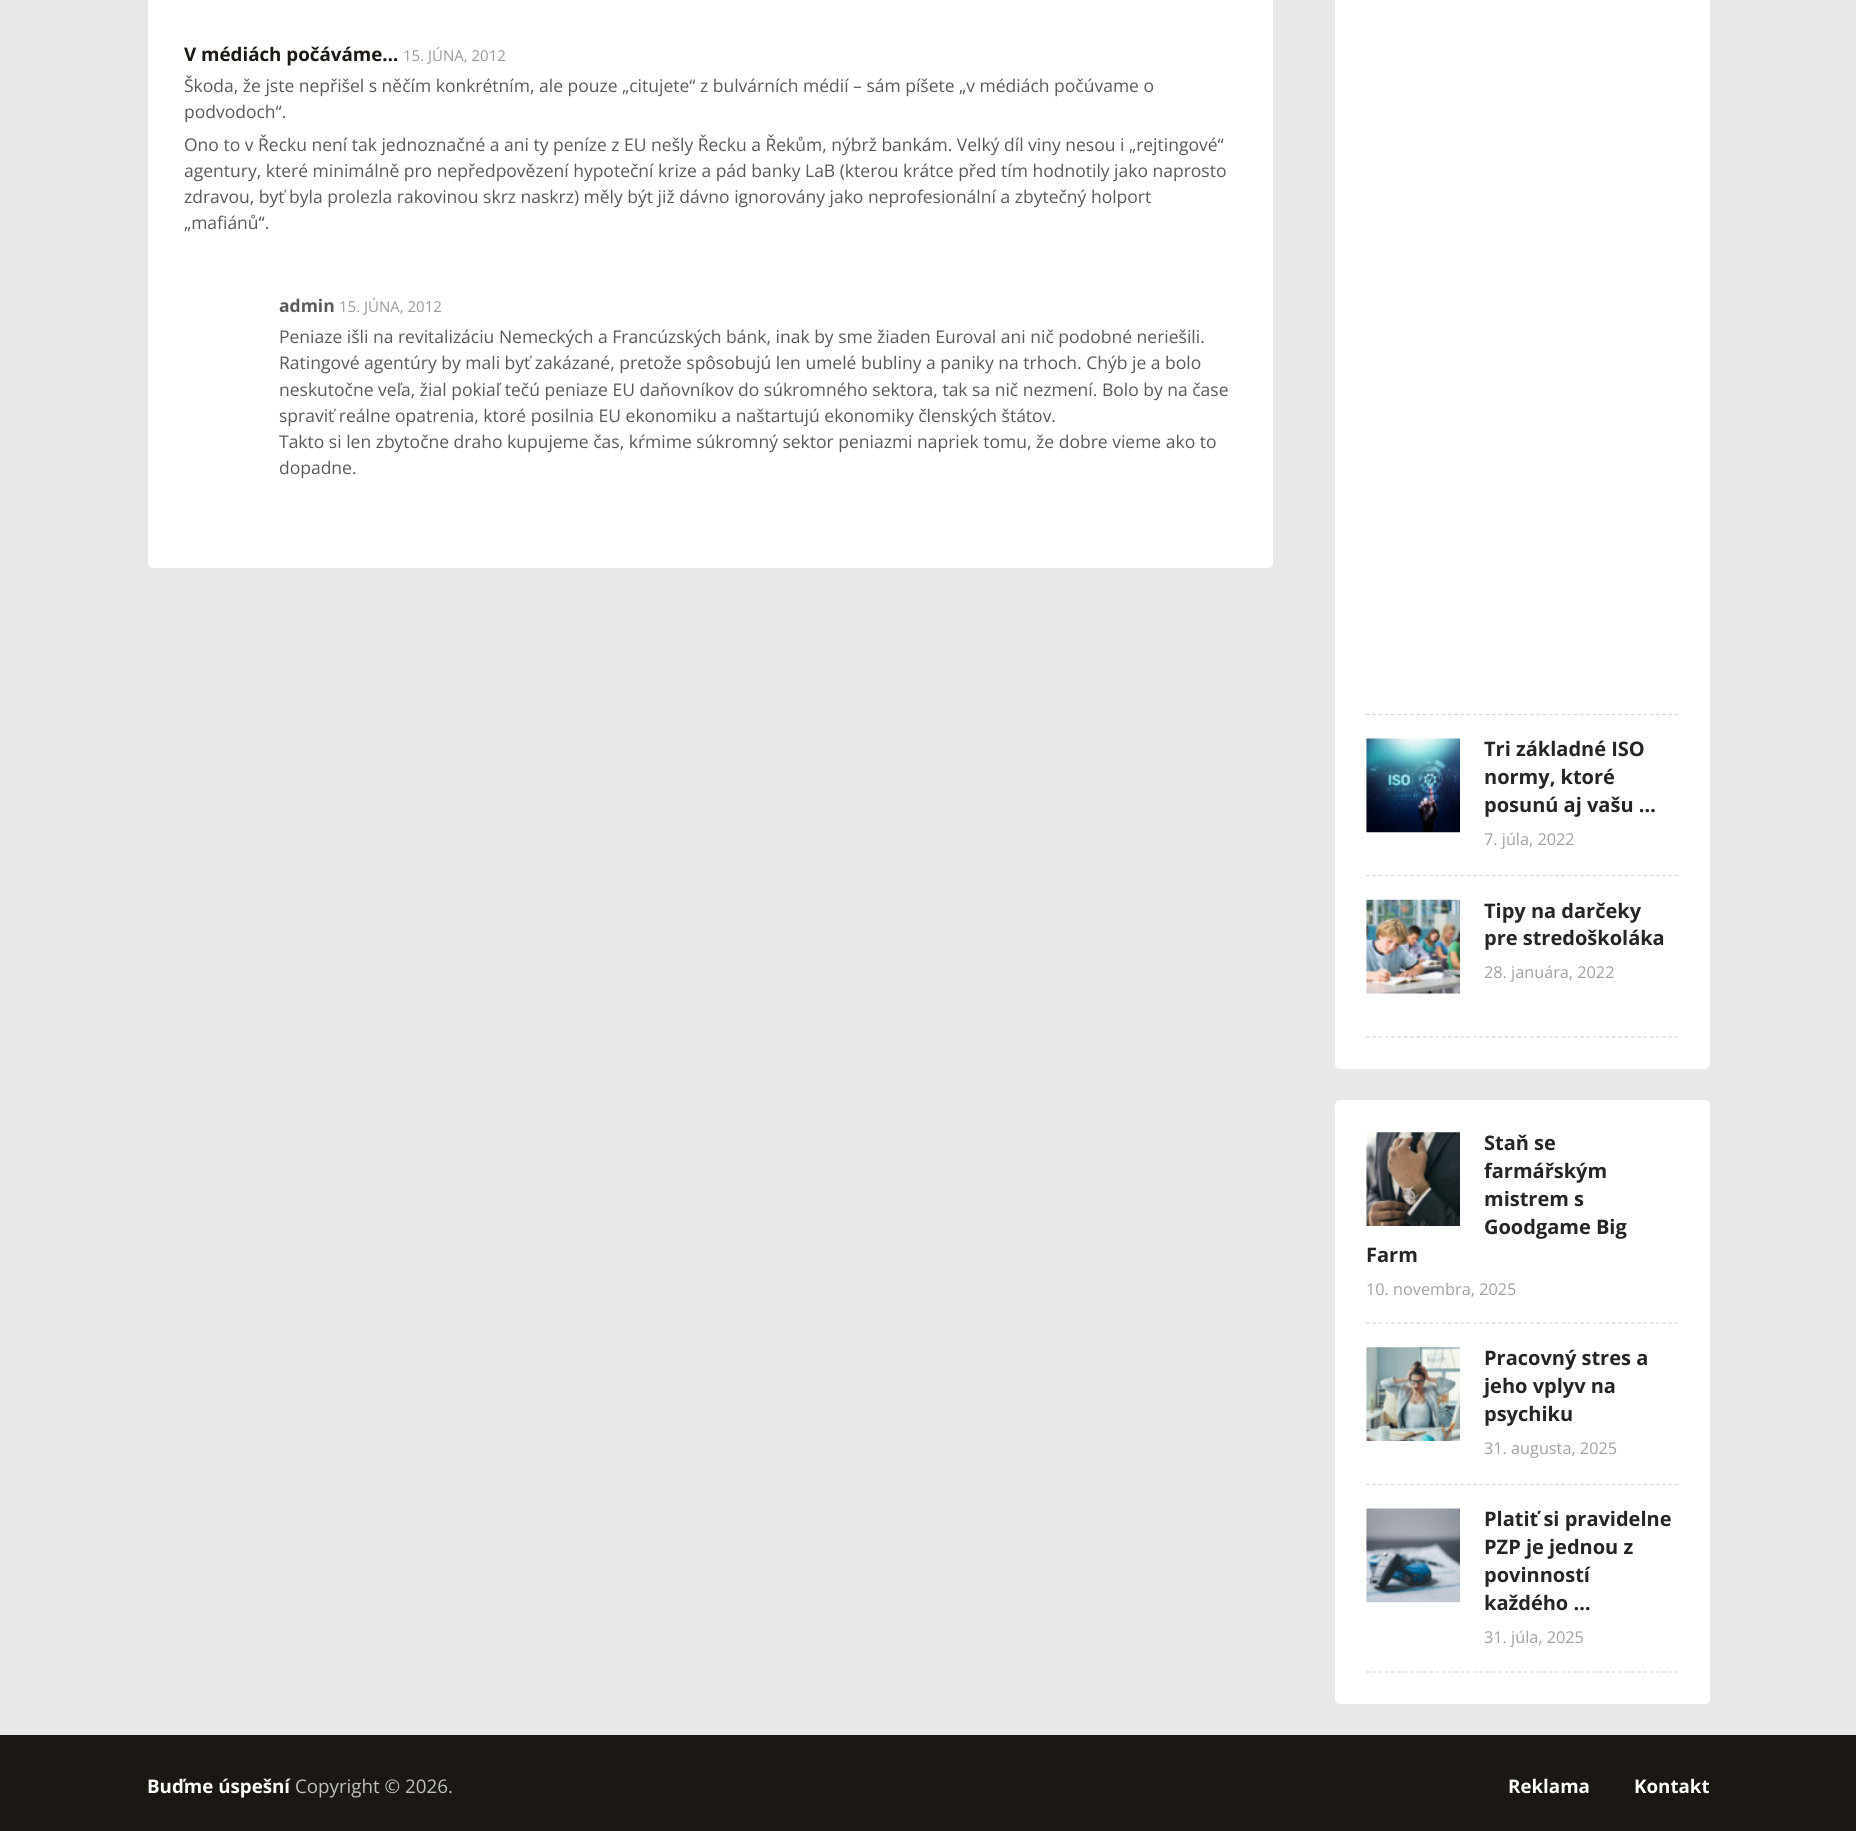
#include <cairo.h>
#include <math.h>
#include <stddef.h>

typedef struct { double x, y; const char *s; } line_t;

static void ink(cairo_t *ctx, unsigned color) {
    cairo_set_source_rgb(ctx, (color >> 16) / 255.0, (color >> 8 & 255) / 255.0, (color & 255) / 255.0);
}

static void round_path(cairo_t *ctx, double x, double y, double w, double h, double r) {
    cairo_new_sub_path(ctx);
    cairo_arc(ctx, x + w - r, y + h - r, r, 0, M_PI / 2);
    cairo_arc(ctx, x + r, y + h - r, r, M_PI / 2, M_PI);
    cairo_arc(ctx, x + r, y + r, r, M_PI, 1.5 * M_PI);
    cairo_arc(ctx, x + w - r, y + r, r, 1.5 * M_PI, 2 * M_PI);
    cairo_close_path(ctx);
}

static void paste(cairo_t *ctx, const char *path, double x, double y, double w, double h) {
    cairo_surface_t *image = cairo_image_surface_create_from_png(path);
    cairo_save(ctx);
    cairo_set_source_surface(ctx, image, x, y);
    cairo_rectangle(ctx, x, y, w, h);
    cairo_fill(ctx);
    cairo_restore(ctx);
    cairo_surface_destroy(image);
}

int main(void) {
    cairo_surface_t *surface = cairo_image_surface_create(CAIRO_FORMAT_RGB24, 1856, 1831);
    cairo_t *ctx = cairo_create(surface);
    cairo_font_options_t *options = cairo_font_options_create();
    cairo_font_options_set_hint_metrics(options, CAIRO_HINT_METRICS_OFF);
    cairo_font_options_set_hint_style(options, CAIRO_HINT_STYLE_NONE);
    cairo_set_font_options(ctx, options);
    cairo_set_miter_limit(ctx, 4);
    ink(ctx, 0xE8E8E8);
    cairo_paint(ctx);
    ink(ctx, 0xFFFFFF);
    round_path(ctx, 148, -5, 1125, 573, 5);
    cairo_fill(ctx);
    cairo_select_font_face(ctx, "Open Sans", CAIRO_FONT_SLANT_NORMAL, CAIRO_FONT_WEIGHT_BOLD);
    cairo_set_font_size(ctx, 18.75);
    ink(ctx, 0x1B1713);
    cairo_move_to(ctx, 184, 61);
    cairo_show_text(ctx, "V médiách počáváme…");
    cairo_select_font_face(ctx, "Open Sans", CAIRO_FONT_SLANT_NORMAL, CAIRO_FONT_WEIGHT_NORMAL);
    cairo_set_font_size(ctx, 15);
    ink(ctx, 0x999999);
    cairo_move_to(ctx, 403, 61);
    cairo_show_text(ctx, "15. JÚNA, 2012");
    cairo_set_font_size(ctx, 17.5);
    ink(ctx, 0x595959);
    {
        static const line_t items[] = {
            {184, 92, "Škoda, že jste nepřišel s něčím konkrétním, ale pouze „citujete“ z bulvárních médií – sám píšete „v médiách počúvame o"},
            {184, 118, "podvodoch“."},
            {184, 151, "Ono to v Řecku není tak jednoznačné a ani ty peníze z EU nešly Řecku a Řekům, nýbrž bankám. Velký díl viny nesou i „rejtingové“"},
            {184, 177, "agentury, které minimálně pro nepředpovězení hypoteční krize a pád banky LaB (kterou krátce před tím hodnotily jako naprosto"},
            {184, 203, "zdravou, byť byla prolezla rakovinou skrz naskrz) měly být již dávno ignorovány jako neprofesionální a zbytečný holport"},
            {184, 229, "„mafiánů“."},
        };
        for (size_t i = 0; i < sizeof items / sizeof *items; i++) {
            cairo_move_to(ctx, items[i].x, items[i].y);
            cairo_show_text(ctx, items[i].s);
        }
    }
    cairo_select_font_face(ctx, "Open Sans", CAIRO_FONT_SLANT_NORMAL, CAIRO_FONT_WEIGHT_BOLD);
    cairo_move_to(ctx, 279, 312);
    cairo_show_text(ctx, "admin");
    cairo_select_font_face(ctx, "Open Sans", CAIRO_FONT_SLANT_NORMAL, CAIRO_FONT_WEIGHT_NORMAL);
    cairo_set_font_size(ctx, 15);
    ink(ctx, 0x999999);
    cairo_move_to(ctx, 339, 312);
    cairo_show_text(ctx, "15. JÚNA, 2012");
    cairo_set_font_size(ctx, 17.5);
    ink(ctx, 0x595959);
    {
        static const line_t items[] = {
            {279, 343, "Peniaze išli na revitalizáciu Nemeckých a Francúzských bánk, inak by sme žiaden Euroval ani nič podobné neriešili."},
            {279, 369, "Ratingové agentúry by mali byť zakázané, pretože spôsobujú len umelé bubliny a paniky na trhoch. Chýb je a bolo"},
            {279, 396, "neskutočne veľa, žial pokiaľ tečú peniaze EU daňovníkov do súkromného sektora, tak sa nič nezmení. Bolo by na čase"},
            {279, 422, "spraviť reálne opatrenia, ktoré posilnia EU ekonomiku a naštartujú ekonomiky členských štátov."},
            {279, 448, "Takto si len zbytočne draho kupujeme čas, kŕmime súkromný sektor peniazmi napriek tomu, že dobre vieme ako to"},
            {279, 474, "dopadne."},
        };
        for (size_t i = 0; i < sizeof items / sizeof *items; i++) {
            cairo_move_to(ctx, items[i].x, items[i].y);
            cairo_show_text(ctx, items[i].s);
        }
    }
    ink(ctx, 0xFFFFFF);
    round_path(ctx, 1335, -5, 375, 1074, 5);
    cairo_fill(ctx);
    cairo_new_path(ctx);
    cairo_move_to(ctx, 1366, 714.5);
    cairo_line_to(ctx, 1679, 714.5);
    ink(ctx, 0xD8D8D8);
    cairo_set_line_width(ctx, 1.2);
    cairo_set_dash(ctx, (double[]){3.75, 2.55}, 2, 0);
    cairo_stroke(ctx);
    cairo_new_path(ctx);
    cairo_move_to(ctx, 1366, 875.5);
    cairo_line_to(ctx, 1679, 875.5);
    cairo_stroke(ctx);
    paste(ctx, "media/1.png", 1366, 738, 94, 95);
    cairo_select_font_face(ctx, "Open Sans", CAIRO_FONT_SLANT_NORMAL, CAIRO_FONT_WEIGHT_BOLD);
    cairo_set_font_size(ctx, 20);
    ink(ctx, 0x252525);
    {
        static const line_t items[] = {
            {1484, 756, "Tri základné ISO"},
            {1484, 784, "normy, ktoré"},
            {1484, 812, "posunú aj vašu …"},
        };
        for (size_t i = 0; i < sizeof items / sizeof *items; i++) {
            cairo_move_to(ctx, items[i].x, items[i].y);
            cairo_show_text(ctx, items[i].s);
        }
    }
    cairo_select_font_face(ctx, "Open Sans", CAIRO_FONT_SLANT_NORMAL, CAIRO_FONT_WEIGHT_NORMAL);
    cairo_set_font_size(ctx, 16.25);
    ink(ctx, 0xA1A1A1);
    cairo_move_to(ctx, 1484, 845);
    cairo_show_text(ctx, "7. júla, 2022");
    cairo_new_path(ctx);
    cairo_move_to(ctx, 1366, 1037);
    cairo_line_to(ctx, 1679, 1037);
    ink(ctx, 0xD8D8D8);
    cairo_stroke(ctx);
    paste(ctx, "media/2.png", 1366, 899, 94, 95);
    cairo_select_font_face(ctx, "Open Sans", CAIRO_FONT_SLANT_NORMAL, CAIRO_FONT_WEIGHT_BOLD);
    cairo_set_font_size(ctx, 20);
    ink(ctx, 0x252525);
    cairo_move_to(ctx, 1484, 918);
    cairo_show_text(ctx, "Tipy na darčeky");
    cairo_move_to(ctx, 1484, 945);
    cairo_show_text(ctx, "pre stredoškoláka");
    cairo_select_font_face(ctx, "Open Sans", CAIRO_FONT_SLANT_NORMAL, CAIRO_FONT_WEIGHT_NORMAL);
    cairo_set_font_size(ctx, 16.25);
    ink(ctx, 0xA1A1A1);
    cairo_move_to(ctx, 1484, 978);
    cairo_show_text(ctx, "28. januára, 2022");
    ink(ctx, 0xFFFFFF);
    round_path(ctx, 1335, 1100, 375, 604, 5);
    cairo_fill(ctx);
    cairo_new_path(ctx);
    cairo_move_to(ctx, 1366, 1323);
    cairo_line_to(ctx, 1679, 1323);
    ink(ctx, 0xD8D8D8);
    cairo_stroke(ctx);
    paste(ctx, "media/3.png", 1366, 1132, 94, 94);
    cairo_select_font_face(ctx, "Open Sans", CAIRO_FONT_SLANT_NORMAL, CAIRO_FONT_WEIGHT_BOLD);
    cairo_set_font_size(ctx, 20);
    ink(ctx, 0x252525);
    {
        static const line_t items[] = {
            {1484, 1150, "Staň se"},
            {1484, 1178, "farmářským"},
            {1484, 1206, "mistrem s"},
            {1484, 1234, "Goodgame Big"},
            {1366, 1262, "Farm"},
        };
        for (size_t i = 0; i < sizeof items / sizeof *items; i++) {
            cairo_move_to(ctx, items[i].x, items[i].y);
            cairo_show_text(ctx, items[i].s);
        }
    }
    cairo_select_font_face(ctx, "Open Sans", CAIRO_FONT_SLANT_NORMAL, CAIRO_FONT_WEIGHT_NORMAL);
    cairo_set_font_size(ctx, 16.25);
    ink(ctx, 0xA1A1A1);
    cairo_move_to(ctx, 1366, 1295);
    cairo_show_text(ctx, "10. novembra, 2025");
    cairo_new_path(ctx);
    cairo_move_to(ctx, 1366, 1484.5);
    cairo_line_to(ctx, 1679, 1484.5);
    ink(ctx, 0xD8D8D8);
    cairo_stroke(ctx);
    paste(ctx, "media/4.png", 1366, 1347, 94, 94);
    cairo_select_font_face(ctx, "Open Sans", CAIRO_FONT_SLANT_NORMAL, CAIRO_FONT_WEIGHT_BOLD);
    cairo_set_font_size(ctx, 20);
    ink(ctx, 0x252525);
    {
        static const line_t items[] = {
            {1484, 1365, "Pracovný stres a"},
            {1484, 1393, "jeho vplyv na"},
            {1484, 1421, "psychiku"},
        };
        for (size_t i = 0; i < sizeof items / sizeof *items; i++) {
            cairo_move_to(ctx, items[i].x, items[i].y);
            cairo_show_text(ctx, items[i].s);
        }
    }
    cairo_select_font_face(ctx, "Open Sans", CAIRO_FONT_SLANT_NORMAL, CAIRO_FONT_WEIGHT_NORMAL);
    cairo_set_font_size(ctx, 16.25);
    ink(ctx, 0xA1A1A1);
    cairo_move_to(ctx, 1484, 1454);
    cairo_show_text(ctx, "31. augusta, 2025");
    cairo_new_path(ctx);
    cairo_move_to(ctx, 1366, 1672);
    cairo_line_to(ctx, 1679, 1672);
    ink(ctx, 0xD8D8D8);
    cairo_stroke(ctx);
    paste(ctx, "media/5.png", 1366, 1508, 94, 95);
    cairo_select_font_face(ctx, "Open Sans", CAIRO_FONT_SLANT_NORMAL, CAIRO_FONT_WEIGHT_BOLD);
    cairo_set_font_size(ctx, 20);
    ink(ctx, 0x252525);
    {
        static const line_t items[] = {
            {1484, 1526, "Platiť si pravidelne"},
            {1484, 1554, "PZP je jednou z"},
            {1484, 1582, "povinností"},
            {1484, 1610, "každého …"},
        };
        for (size_t i = 0; i < sizeof items / sizeof *items; i++) {
            cairo_move_to(ctx, items[i].x, items[i].y);
            cairo_show_text(ctx, items[i].s);
        }
    }
    cairo_select_font_face(ctx, "Open Sans", CAIRO_FONT_SLANT_NORMAL, CAIRO_FONT_WEIGHT_NORMAL);
    cairo_set_font_size(ctx, 16.25);
    ink(ctx, 0xA1A1A1);
    cairo_move_to(ctx, 1484, 1643);
    cairo_show_text(ctx, "31. júla, 2025");
    ink(ctx, 0x1B1713);
    cairo_rectangle(ctx, 0, 1735, 1856, 96);
    cairo_fill(ctx);
    cairo_select_font_face(ctx, "Open Sans", CAIRO_FONT_SLANT_NORMAL, CAIRO_FONT_WEIGHT_BOLD);
    cairo_set_font_size(ctx, 18.75);
    ink(ctx, 0xFFFFFF);
    cairo_move_to(ctx, 147, 1793);
    cairo_show_text(ctx, "Buďme úspešní");
    cairo_select_font_face(ctx, "Open Sans", CAIRO_FONT_SLANT_NORMAL, CAIRO_FONT_WEIGHT_NORMAL);
    ink(ctx, 0xC0C0C0);
    cairo_move_to(ctx, 295, 1793);
    cairo_show_text(ctx, "Copyright © 2026.");
    cairo_select_font_face(ctx, "Open Sans", CAIRO_FONT_SLANT_NORMAL, CAIRO_FONT_WEIGHT_BOLD);
    ink(ctx, 0xFFFFFF);
    cairo_move_to(ctx, 1508, 1793);
    cairo_show_text(ctx, "Reklama");
    cairo_move_to(ctx, 1634, 1793);
    cairo_show_text(ctx, "Kontakt");
    cairo_surface_write_to_png(surface, "image.png");
    cairo_font_options_destroy(options);
    cairo_destroy(ctx);
    cairo_surface_destroy(surface);
    return 0;
}
